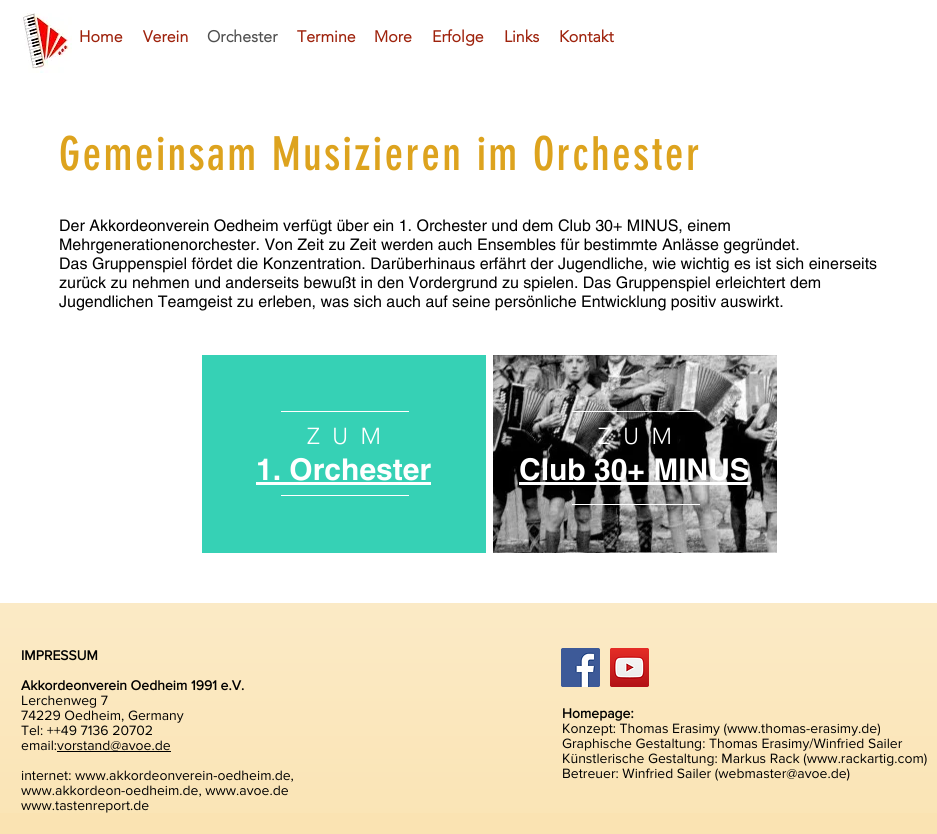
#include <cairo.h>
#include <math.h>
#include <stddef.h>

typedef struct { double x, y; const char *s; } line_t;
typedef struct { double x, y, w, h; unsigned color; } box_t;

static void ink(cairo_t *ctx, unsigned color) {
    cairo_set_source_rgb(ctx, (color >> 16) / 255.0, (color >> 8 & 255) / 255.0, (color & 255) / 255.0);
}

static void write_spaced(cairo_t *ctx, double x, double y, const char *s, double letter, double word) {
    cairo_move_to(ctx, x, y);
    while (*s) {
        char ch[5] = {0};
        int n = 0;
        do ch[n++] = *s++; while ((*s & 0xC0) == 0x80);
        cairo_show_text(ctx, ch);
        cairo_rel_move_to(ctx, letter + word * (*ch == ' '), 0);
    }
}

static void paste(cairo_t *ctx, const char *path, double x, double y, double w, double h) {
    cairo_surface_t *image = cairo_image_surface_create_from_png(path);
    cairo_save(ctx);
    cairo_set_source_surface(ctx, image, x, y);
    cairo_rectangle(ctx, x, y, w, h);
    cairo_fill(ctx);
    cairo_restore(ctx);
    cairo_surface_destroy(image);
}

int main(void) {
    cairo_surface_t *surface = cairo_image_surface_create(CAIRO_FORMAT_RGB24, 937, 834);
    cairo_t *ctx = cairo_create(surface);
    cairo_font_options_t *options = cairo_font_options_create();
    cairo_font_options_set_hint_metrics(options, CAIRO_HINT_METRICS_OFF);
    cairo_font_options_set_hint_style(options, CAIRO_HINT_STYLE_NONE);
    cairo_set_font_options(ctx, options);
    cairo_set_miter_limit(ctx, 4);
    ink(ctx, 0xFFFFFF);
    cairo_paint(ctx);
    paste(ctx, "media/1.png", 21, 13, 51, 60);
    cairo_select_font_face(ctx, "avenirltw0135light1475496", CAIRO_FONT_SLANT_NORMAL, CAIRO_FONT_WEIGHT_BOLD);
    cairo_set_font_size(ctx, 16);
    ink(ctx, 0x9E220C);
    cairo_move_to(ctx, 79, 42);
    cairo_show_text(ctx, "Home");
    cairo_move_to(ctx, 143, 42);
    cairo_show_text(ctx, "Verein");
    ink(ctx, 0x4F4F4F);
    cairo_move_to(ctx, 207, 42);
    cairo_show_text(ctx, "Orchester");
    ink(ctx, 0x9E220C);
    {
        static const line_t items[] = {
            {297, 42, "Termine"},
            {374, 42, "More"},
            {432, 42, "Erfolge"},
            {504, 42, "Links"},
            {559, 42, "Kontakt"},
        };
        for (size_t i = 0; i < sizeof items / sizeof *items; i++) {
            cairo_move_to(ctx, items[i].x, items[i].y);
            cairo_show_text(ctx, items[i].s);
        }
    }
    cairo_select_font_face(ctx, "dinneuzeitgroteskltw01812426", CAIRO_FONT_SLANT_NORMAL, CAIRO_FONT_WEIGHT_NORMAL);
    cairo_set_font_size(ctx, 46);
    ink(ctx, 0xDDA31E);
    write_spaced(ctx, 59, 170, "Gemeinsam Musizieren im Orchester", 2.3, 0);
    cairo_select_font_face(ctx, "helvetica", CAIRO_FONT_SLANT_NORMAL, CAIRO_FONT_WEIGHT_NORMAL);
    cairo_set_font_size(ctx, 16);
    ink(ctx, 0x000000);
    {
        static const line_t items[] = {
            {59, 231, "Der Akkordeonverein Oedheim verfügt über ein 1. Orchester und dem Club 30+ MINUS, einem"},
            {59, 250, "Mehrgenerationenorchester. Von Zeit zu Zeit werden auch Ensembles für bestimmte Anlässe gegründet."},
            {59, 269, "Das Gruppenspiel fördet die Konzentration. Darüberhinaus erfährt der Jugendliche, wie wichtig es ist sich einerseits"},
            {59, 288, "zurück zu nehmen und anderseits bewußt in den Vordergrund zu spielen. Das Gruppenspiel erleichtert dem"},
            {59, 307, "Jugendlichen Teamgeist zu erleben, was sich auch auf seine persönliche Entwicklung positiv auswirkt."},
        };
        for (size_t i = 0; i < sizeof items / sizeof *items; i++) {
            cairo_move_to(ctx, items[i].x, items[i].y);
            cairo_show_text(ctx, items[i].s);
        }
    }
    ink(ctx, 0x36D1B5);
    cairo_rectangle(ctx, 202, 355, 284, 198);
    cairo_fill(ctx);
    ink(ctx, 0xFFFFFF);
    cairo_rectangle(ctx, 281, 411, 128, 1);
    cairo_fill(ctx);
    cairo_select_font_face(ctx, "avenirltw0135light1475496 Light", CAIRO_FONT_SLANT_NORMAL, CAIRO_FONT_WEIGHT_NORMAL);
    cairo_set_font_size(ctx, 23);
    write_spaced(ctx, 307, 444, "ZUM", 12.5, 0);
    cairo_select_font_face(ctx, "helvetica", CAIRO_FONT_SLANT_NORMAL, CAIRO_FONT_WEIGHT_BOLD);
    cairo_set_font_size(ctx, 30);
    cairo_move_to(ctx, 256, 480);
    cairo_show_text(ctx, "1. Orchester");
    cairo_rectangle(ctx, 256, 482, 175, 3);
    cairo_fill(ctx);
    cairo_rectangle(ctx, 281, 495, 128, 1);
    cairo_fill(ctx);
    paste(ctx, "media/2.png", 493, 355, 284, 198);
    cairo_rectangle(ctx, 572, 411, 128, 1);
    cairo_fill(ctx);
    cairo_select_font_face(ctx, "avenirltw0135light1475496 Light", CAIRO_FONT_SLANT_NORMAL, CAIRO_FONT_WEIGHT_NORMAL);
    cairo_set_font_size(ctx, 23);
    write_spaced(ctx, 598, 444, "ZUM", 12.5, 0);
    cairo_select_font_face(ctx, "helvetica", CAIRO_FONT_SLANT_NORMAL, CAIRO_FONT_WEIGHT_BOLD);
    cairo_set_font_size(ctx, 30);
    cairo_move_to(ctx, 519, 480);
    cairo_show_text(ctx, "Club 30+ MINUS");
    {
        static const box_t items[] = {
            {519, 482, 231, 3, 0xFFFFFF},
            {572, 504, 128, 1, 0xFFFFFF},
            {0, 603, 937, 231, 0xFAE3B2},
        };
        for (size_t i = 0; i < sizeof items / sizeof *items; i++) {
            ink(ctx, items[i].color);
            cairo_rectangle(ctx, items[i].x, items[i].y, items[i].w, items[i].h);
            cairo_fill(ctx);
        }
    }
    paste(ctx, "media/3.png", 0, 603, 937, 210);
    cairo_select_font_face(ctx, "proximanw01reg", CAIRO_FONT_SLANT_NORMAL, CAIRO_FONT_WEIGHT_BOLD);
    cairo_set_font_size(ctx, 14);
    ink(ctx, 0x000000);
    cairo_move_to(ctx, 21, 660);
    cairo_show_text(ctx, "IMPRESSUM");
    cairo_move_to(ctx, 21, 690);
    cairo_show_text(ctx, "Akkordeonverein Oedheim 1991 e.V.");
    cairo_select_font_face(ctx, "proximanw01reg", CAIRO_FONT_SLANT_NORMAL, CAIRO_FONT_WEIGHT_NORMAL);
    {
        static const line_t items[] = {
            {21, 705, "Lerchenweg 7"},
            {21, 720, "74229 Oedheim, Germany"},
            {21, 735, "Tel: ++49 7136 20702"},
            {21, 750, "email:vorstand@avoe.de"},
        };
        for (size_t i = 0; i < sizeof items / sizeof *items; i++) {
            cairo_move_to(ctx, items[i].x, items[i].y);
            cairo_show_text(ctx, items[i].s);
        }
    }
    cairo_rectangle(ctx, 57, 751, 114, 1);
    cairo_fill(ctx);
    {
        static const line_t items[] = {
            {21, 780, "internet: www.akkordeonverein-oedheim.de,"},
            {21, 795, "www.akkordeon-oedheim.de, www.avoe.de"},
            {21, 810, "www.tastenreport.de"},
        };
        for (size_t i = 0; i < sizeof items / sizeof *items; i++) {
            cairo_move_to(ctx, items[i].x, items[i].y);
            cairo_show_text(ctx, items[i].s);
        }
    }
    paste(ctx, "media/4.png", 561, 648, 39, 39);
    paste(ctx, "media/5.png", 610, 648, 39, 39);
    cairo_select_font_face(ctx, "proximanw01reg", CAIRO_FONT_SLANT_NORMAL, CAIRO_FONT_WEIGHT_BOLD);
    cairo_move_to(ctx, 562, 718);
    cairo_show_text(ctx, "Homepage:");
    cairo_select_font_face(ctx, "proximanw01reg", CAIRO_FONT_SLANT_NORMAL, CAIRO_FONT_WEIGHT_NORMAL);
    {
        static const line_t items[] = {
            {562, 733, "Konzept: Thomas Erasimy (www.thomas-erasimy.de)"},
            {562, 748, "Graphische Gestaltung: Thomas Erasimy/Winfried Sailer"},
            {562, 763, "Künstlerische Gestaltung: Markus Rack (www.rackartig.com)"},
            {562, 778, "Betreuer: Winfried Sailer (webmaster@avoe.de)"},
        };
        for (size_t i = 0; i < sizeof items / sizeof *items; i++) {
            cairo_move_to(ctx, items[i].x, items[i].y);
            cairo_show_text(ctx, items[i].s);
        }
    }
    cairo_surface_write_to_png(surface, "image.png");
    cairo_font_options_destroy(options);
    cairo_destroy(ctx);
    cairo_surface_destroy(surface);
    return 0;
}
